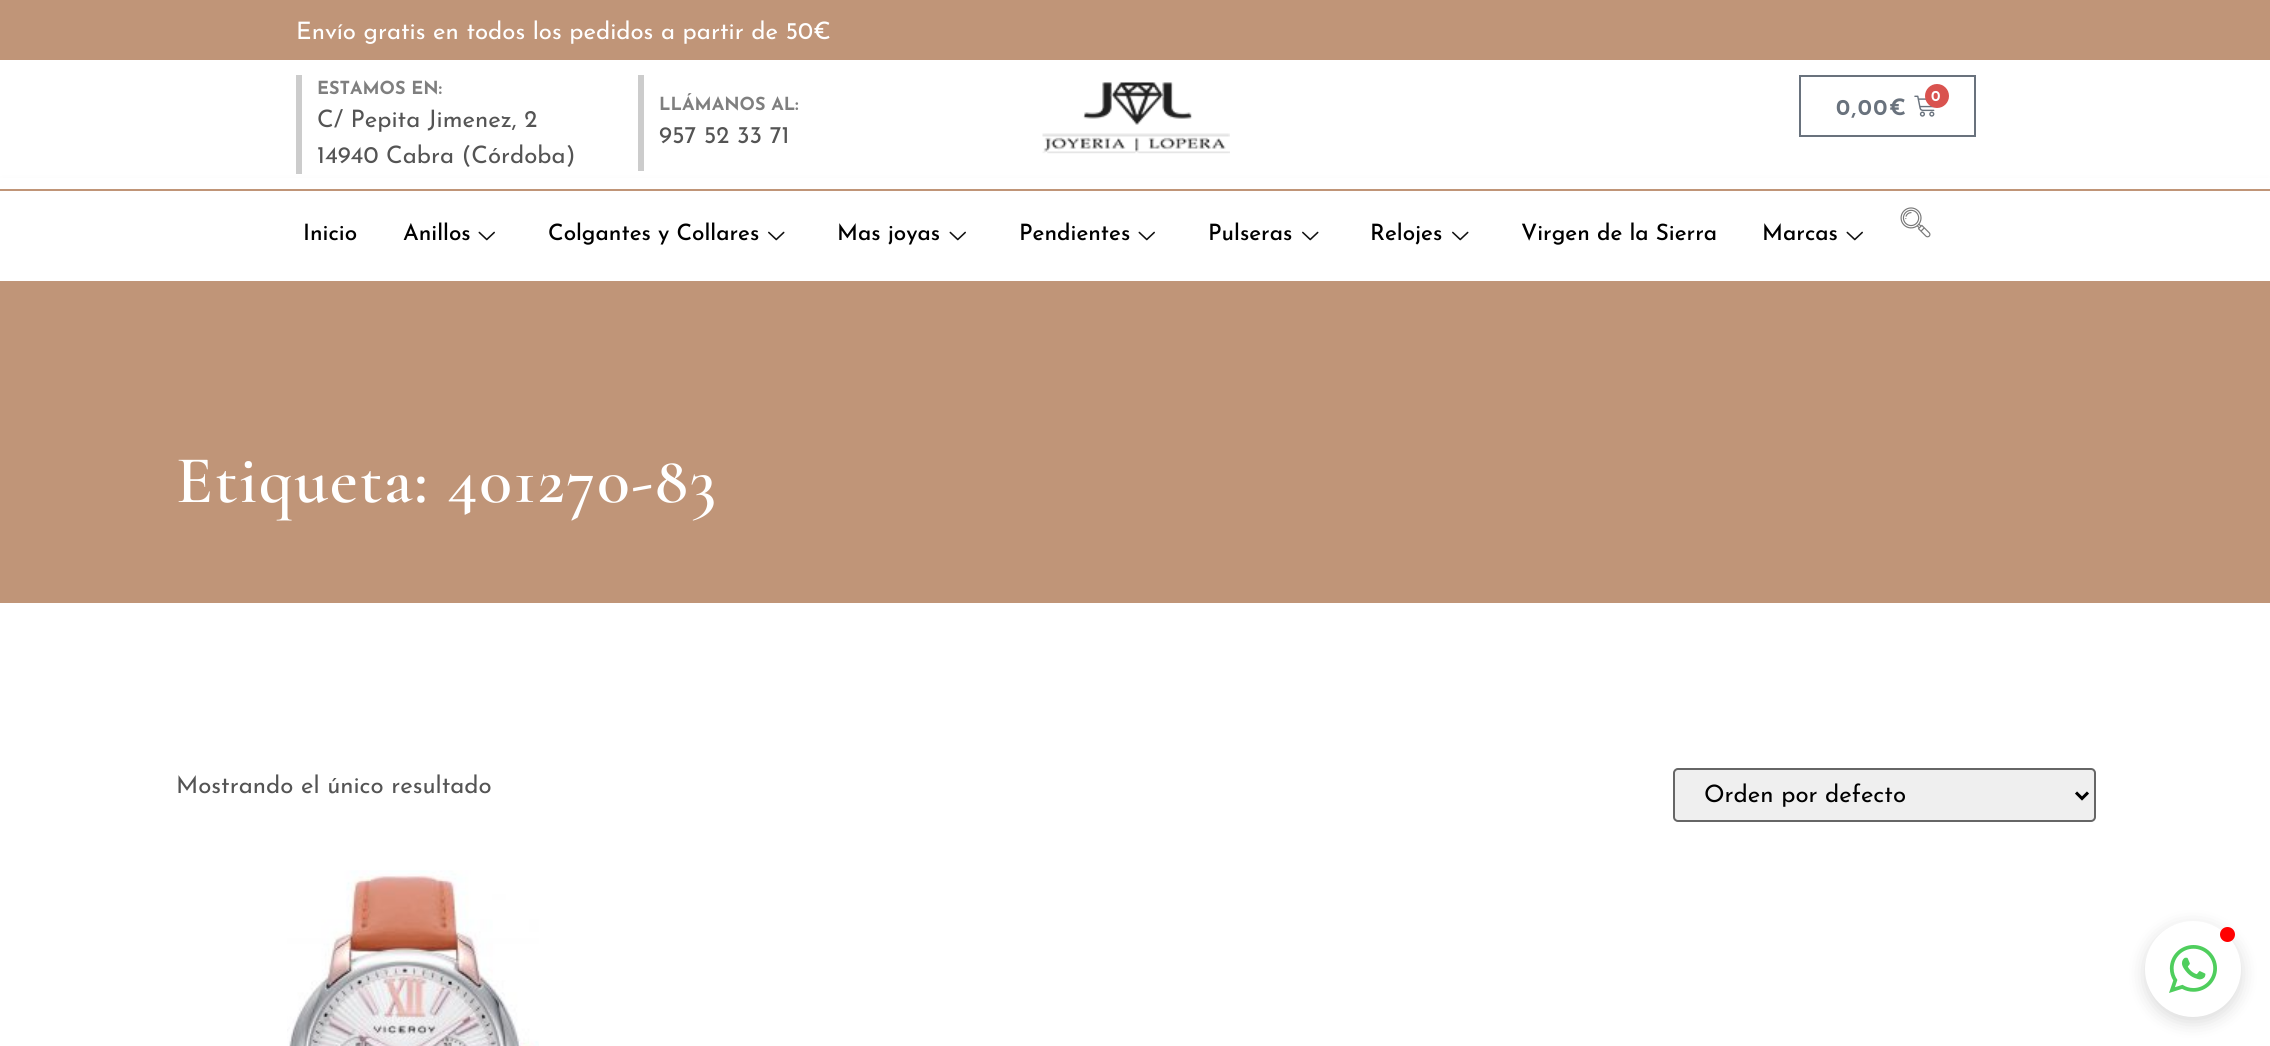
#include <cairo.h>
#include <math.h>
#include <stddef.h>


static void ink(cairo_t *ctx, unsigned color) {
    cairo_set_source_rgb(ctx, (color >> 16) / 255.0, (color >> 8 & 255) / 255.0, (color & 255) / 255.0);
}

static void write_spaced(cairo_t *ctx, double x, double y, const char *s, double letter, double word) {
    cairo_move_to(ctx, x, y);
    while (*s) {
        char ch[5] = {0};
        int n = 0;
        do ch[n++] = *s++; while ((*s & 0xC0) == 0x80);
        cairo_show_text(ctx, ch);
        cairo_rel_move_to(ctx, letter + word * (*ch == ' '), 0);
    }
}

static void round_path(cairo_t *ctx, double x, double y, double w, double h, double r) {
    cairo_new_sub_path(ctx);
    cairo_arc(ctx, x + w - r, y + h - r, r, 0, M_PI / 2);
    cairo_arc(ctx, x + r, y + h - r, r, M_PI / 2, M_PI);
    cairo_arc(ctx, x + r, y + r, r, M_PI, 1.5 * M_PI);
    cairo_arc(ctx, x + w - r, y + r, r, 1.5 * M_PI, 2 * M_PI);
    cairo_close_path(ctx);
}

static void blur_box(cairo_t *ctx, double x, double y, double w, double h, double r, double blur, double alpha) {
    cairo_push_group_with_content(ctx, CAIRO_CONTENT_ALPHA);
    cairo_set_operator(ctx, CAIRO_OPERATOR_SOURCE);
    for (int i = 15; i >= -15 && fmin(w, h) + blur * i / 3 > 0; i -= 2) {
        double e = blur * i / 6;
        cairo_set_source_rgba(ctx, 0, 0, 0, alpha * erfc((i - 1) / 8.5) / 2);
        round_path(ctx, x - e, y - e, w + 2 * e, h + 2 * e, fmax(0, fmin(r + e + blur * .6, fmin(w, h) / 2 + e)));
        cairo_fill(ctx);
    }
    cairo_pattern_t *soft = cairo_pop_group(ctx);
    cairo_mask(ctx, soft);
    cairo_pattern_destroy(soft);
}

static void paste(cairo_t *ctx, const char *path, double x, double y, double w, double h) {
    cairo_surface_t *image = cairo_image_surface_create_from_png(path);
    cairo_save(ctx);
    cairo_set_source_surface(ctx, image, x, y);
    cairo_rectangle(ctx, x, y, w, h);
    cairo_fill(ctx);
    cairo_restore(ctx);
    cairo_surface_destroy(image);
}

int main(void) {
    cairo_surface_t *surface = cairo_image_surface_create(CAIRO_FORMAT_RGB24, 2270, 1046);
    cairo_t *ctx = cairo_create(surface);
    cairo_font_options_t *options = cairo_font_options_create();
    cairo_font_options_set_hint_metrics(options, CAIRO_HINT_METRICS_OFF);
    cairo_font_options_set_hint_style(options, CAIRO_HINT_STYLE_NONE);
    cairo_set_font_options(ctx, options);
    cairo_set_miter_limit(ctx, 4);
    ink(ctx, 0xFFFFFF);
    cairo_paint(ctx);
    ink(ctx, 0xC09578);
    cairo_rectangle(ctx, 0, 0, 2270, 60);
    cairo_fill(ctx);
    cairo_select_font_face(ctx, "Josefin Sans", CAIRO_FONT_SLANT_NORMAL, CAIRO_FONT_WEIGHT_NORMAL);
    cairo_set_font_size(ctx, 24);
    ink(ctx, 0xFFFFFF);
    cairo_move_to(ctx, 296, 39);
    cairo_show_text(ctx, "Envío gratis en todos los pedidos a partir de 50€");
    cairo_save(ctx);
    cairo_set_fill_rule(ctx, CAIRO_FILL_RULE_EVEN_ODD);
    cairo_new_path(ctx);
    cairo_move_to(ctx, 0, 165);
    cairo_line_to(ctx, 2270, 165);
    cairo_line_to(ctx, 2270, 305);
    cairo_line_to(ctx, 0, 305);
    cairo_close_path(ctx);
    cairo_move_to(ctx, 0, 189);
    cairo_line_to(ctx, 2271, 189);
    cairo_line_to(ctx, 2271, 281);
    cairo_line_to(ctx, 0, 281);
    cairo_close_path(ctx);
    cairo_clip(ctx);
    ink(ctx, 0x000000);
    blur_box(ctx, 0, 189, 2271, 92, 0, 7.5, 0.14);
    cairo_restore(ctx);
    cairo_rectangle(ctx, 0, 178, 2270, 11);
    cairo_fill(ctx);
    ink(ctx, 0xCCCCCC);
    cairo_rectangle(ctx, 296, 75, 6, 99);
    cairo_fill(ctx);
    cairo_select_font_face(ctx, "Josefin Sans", CAIRO_FONT_SLANT_NORMAL, CAIRO_FONT_WEIGHT_BOLD);
    cairo_set_font_size(ctx, 18);
    ink(ctx, 0x7F7F7F);
    cairo_move_to(ctx, 317, 94);
    cairo_show_text(ctx, "ESTAMOS EN:");
    cairo_select_font_face(ctx, "Josefin Sans", CAIRO_FONT_SLANT_NORMAL, CAIRO_FONT_WEIGHT_NORMAL);
    cairo_set_font_size(ctx, 24);
    ink(ctx, 0x545454);
    cairo_move_to(ctx, 317, 127);
    cairo_show_text(ctx, "C/ Pepita Jimenez, 2");
    cairo_move_to(ctx, 317, 163);
    cairo_show_text(ctx, "14940 Cabra (Córdoba)");
    ink(ctx, 0xCCCCCC);
    cairo_rectangle(ctx, 638, 75, 6, 96);
    cairo_fill(ctx);
    cairo_select_font_face(ctx, "Josefin Sans", CAIRO_FONT_SLANT_NORMAL, CAIRO_FONT_WEIGHT_BOLD);
    cairo_set_font_size(ctx, 18);
    ink(ctx, 0x7F7F7F);
    cairo_move_to(ctx, 659, 110);
    cairo_show_text(ctx, "LLÁMANOS AL:");
    cairo_select_font_face(ctx, "Josefin Sans", CAIRO_FONT_SLANT_NORMAL, CAIRO_FONT_WEIGHT_NORMAL);
    cairo_set_font_size(ctx, 24);
    ink(ctx, 0x545454);
    cairo_move_to(ctx, 659, 143);
    cairo_show_text(ctx, "957 52 33 71");
    paste(ctx, "media/1.png", 1042, 82, 188, 72);
    cairo_rectangle(ctx, 1800, 76, 175, 60);
    ink(ctx, 0x69727D);
    cairo_stroke(ctx);
    paste(ctx, "media/2.png", 1914, 95, 21, 22);
    ink(ctx, 0xD9534F);
    cairo_arc(ctx, 1937, 96, 12, 0, 2 * M_PI);
    cairo_fill(ctx);
    cairo_select_font_face(ctx, "Reem Kufi SemiBold", CAIRO_FONT_SLANT_NORMAL, CAIRO_FONT_WEIGHT_NORMAL);
    cairo_set_font_size(ctx, 15);
    ink(ctx, 0xFFFFFF);
    write_spaced(ctx, 1931, 101, "0", 1.5, 0);
    cairo_set_font_size(ctx, 22.5);
    ink(ctx, 0x69727D);
    write_spaced(ctx, 1836, 115, "0,00€", 1.5, 0);
    ink(ctx, 0xC09578);
    cairo_rectangle(ctx, 0, 189, 2270, 2);
    cairo_fill(ctx);
    cairo_select_font_face(ctx, "Josefin Sans Medium", CAIRO_FONT_SLANT_NORMAL, CAIRO_FONT_WEIGHT_NORMAL);
    ink(ctx, 0x000000);
    cairo_move_to(ctx, 303, 240);
    cairo_show_text(ctx, "Inicio");
    cairo_move_to(ctx, 403, 240);
    cairo_show_text(ctx, "Anillos");
    paste(ctx, "media/3.png", 478, 231, 17, 10);
    cairo_move_to(ctx, 548, 240);
    cairo_show_text(ctx, "Colgantes y Collares");
    paste(ctx, "media/4.png", 768, 231, 17, 10);
    cairo_move_to(ctx, 837, 240);
    cairo_show_text(ctx, "Mas joyas");
    paste(ctx, "media/3.png", 949, 231, 17, 10);
    cairo_move_to(ctx, 1019, 240);
    cairo_show_text(ctx, "Pendientes");
    paste(ctx, "media/3.png", 1138, 231, 17, 10);
    cairo_move_to(ctx, 1208, 240);
    cairo_show_text(ctx, "Pulseras");
    paste(ctx, "media/4.png", 1302, 231, 17, 10);
    cairo_move_to(ctx, 1370, 240);
    cairo_show_text(ctx, "Relojes");
    paste(ctx, "media/4.png", 1452, 231, 17, 10);
    cairo_move_to(ctx, 1521, 240);
    cairo_show_text(ctx, "Virgen de la Sierra");
    cairo_move_to(ctx, 1762, 240);
    cairo_show_text(ctx, "Marcas");
    paste(ctx, "media/3.png", 1846, 231, 17, 10);
    paste(ctx, "media/5.png", 1900, 207, 31, 31);
    ink(ctx, 0xC09578);
    cairo_rectangle(ctx, 0, 281, 2270, 322);
    cairo_fill(ctx);
    cairo_select_font_face(ctx, "Cormorant Garamond SemiBold", CAIRO_FONT_SLANT_NORMAL, CAIRO_FONT_WEIGHT_NORMAL);
    cairo_set_font_size(ctx, 67.5);
    ink(ctx, 0xFFFFFF);
    write_spaced(ctx, 176, 502, "Etiqueta: 401270-83", 1.75, 0);
    cairo_select_font_face(ctx, "Josefin Sans", CAIRO_FONT_SLANT_NORMAL, CAIRO_FONT_WEIGHT_NORMAL);
    cairo_set_font_size(ctx, 24);
    ink(ctx, 0x545454);
    cairo_move_to(ctx, 176, 793);
    cairo_show_text(ctx, "Mostrando el único resultado");
    ink(ctx, 0xEFEFEF);
    round_path(ctx, 1674, 769, 421, 52, 4);
    cairo_fill_preserve(ctx);
    ink(ctx, 0x666666);
    cairo_stroke(ctx);
    cairo_new_path(ctx);
    cairo_move_to(ctx, 2076, 792.5);
    cairo_line_to(ctx, 2082, 798.5);
    cairo_line_to(ctx, 2088, 792.5);
    ink(ctx, 0x000000);
    cairo_set_line_width(ctx, 3);
    cairo_stroke(ctx);
    cairo_move_to(ctx, 1704, 802);
    cairo_show_text(ctx, "Orden por defecto");
    paste(ctx, "media/6.png", 287, 870, 252, 176);
    ink(ctx, 0x000000);
    blur_box(ctx, 2145, 926, 96, 96, 48, 9, 0.15);
    ink(ctx, 0xFFFFFF);
    cairo_arc(ctx, 2193, 969, 48, 0, 2 * M_PI);
    cairo_fill(ctx);
    ink(ctx, 0xFF0000);
    cairo_arc(ctx, 2227.5, 934.5, 7.5, 0, 2 * M_PI);
    cairo_fill(ctx);
    paste(ctx, "media/7.png", 2169, 945, 48, 48);
    cairo_surface_write_to_png(surface, "image.png");
    cairo_font_options_destroy(options);
    cairo_destroy(ctx);
    cairo_surface_destroy(surface);
    return 0;
}
